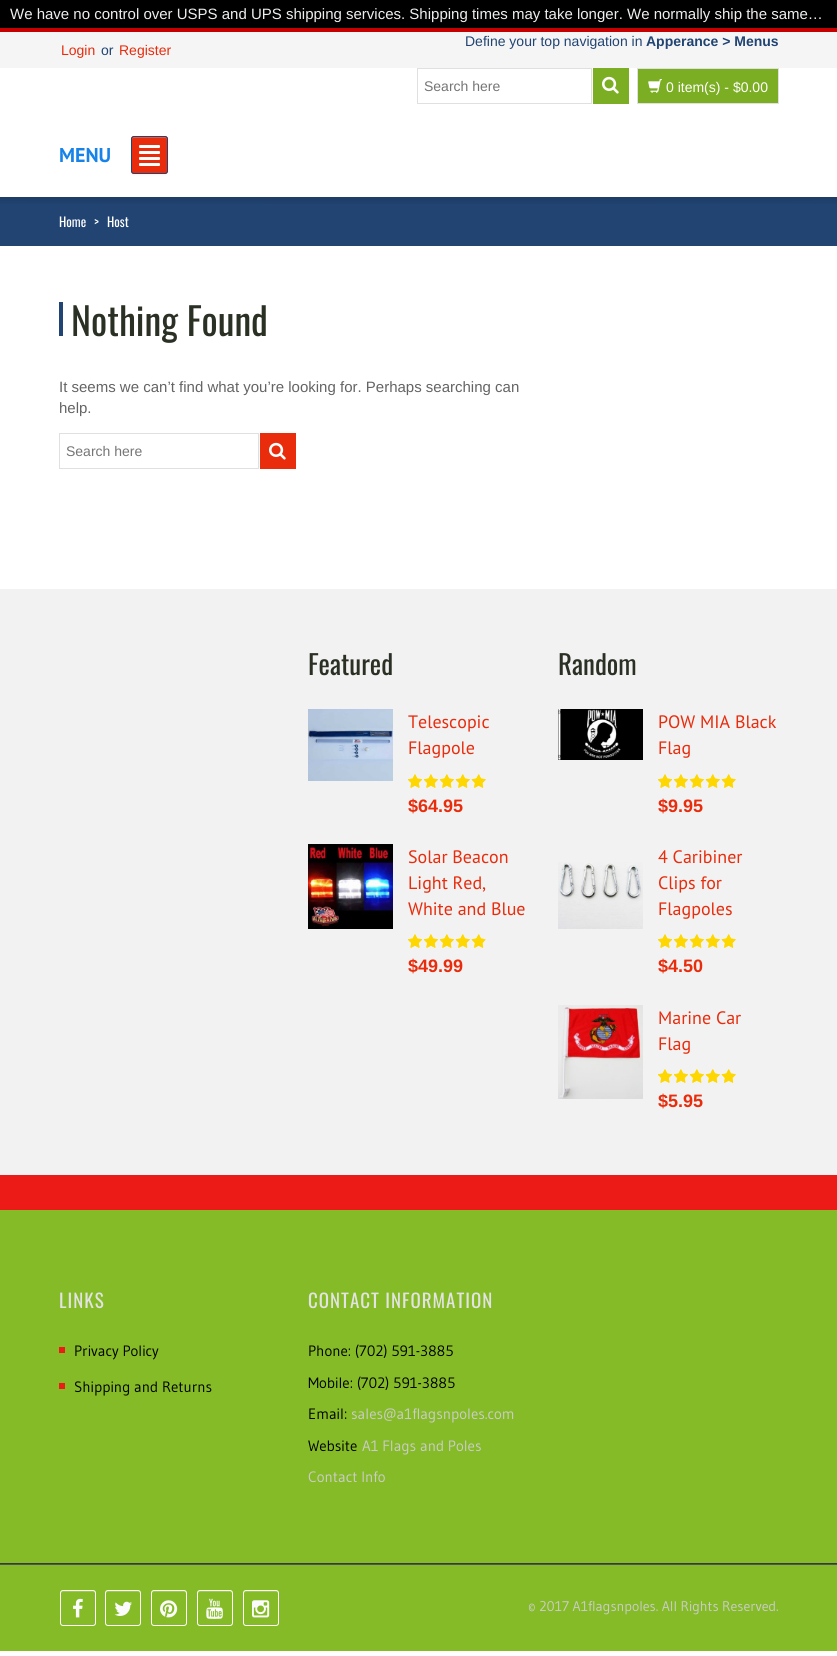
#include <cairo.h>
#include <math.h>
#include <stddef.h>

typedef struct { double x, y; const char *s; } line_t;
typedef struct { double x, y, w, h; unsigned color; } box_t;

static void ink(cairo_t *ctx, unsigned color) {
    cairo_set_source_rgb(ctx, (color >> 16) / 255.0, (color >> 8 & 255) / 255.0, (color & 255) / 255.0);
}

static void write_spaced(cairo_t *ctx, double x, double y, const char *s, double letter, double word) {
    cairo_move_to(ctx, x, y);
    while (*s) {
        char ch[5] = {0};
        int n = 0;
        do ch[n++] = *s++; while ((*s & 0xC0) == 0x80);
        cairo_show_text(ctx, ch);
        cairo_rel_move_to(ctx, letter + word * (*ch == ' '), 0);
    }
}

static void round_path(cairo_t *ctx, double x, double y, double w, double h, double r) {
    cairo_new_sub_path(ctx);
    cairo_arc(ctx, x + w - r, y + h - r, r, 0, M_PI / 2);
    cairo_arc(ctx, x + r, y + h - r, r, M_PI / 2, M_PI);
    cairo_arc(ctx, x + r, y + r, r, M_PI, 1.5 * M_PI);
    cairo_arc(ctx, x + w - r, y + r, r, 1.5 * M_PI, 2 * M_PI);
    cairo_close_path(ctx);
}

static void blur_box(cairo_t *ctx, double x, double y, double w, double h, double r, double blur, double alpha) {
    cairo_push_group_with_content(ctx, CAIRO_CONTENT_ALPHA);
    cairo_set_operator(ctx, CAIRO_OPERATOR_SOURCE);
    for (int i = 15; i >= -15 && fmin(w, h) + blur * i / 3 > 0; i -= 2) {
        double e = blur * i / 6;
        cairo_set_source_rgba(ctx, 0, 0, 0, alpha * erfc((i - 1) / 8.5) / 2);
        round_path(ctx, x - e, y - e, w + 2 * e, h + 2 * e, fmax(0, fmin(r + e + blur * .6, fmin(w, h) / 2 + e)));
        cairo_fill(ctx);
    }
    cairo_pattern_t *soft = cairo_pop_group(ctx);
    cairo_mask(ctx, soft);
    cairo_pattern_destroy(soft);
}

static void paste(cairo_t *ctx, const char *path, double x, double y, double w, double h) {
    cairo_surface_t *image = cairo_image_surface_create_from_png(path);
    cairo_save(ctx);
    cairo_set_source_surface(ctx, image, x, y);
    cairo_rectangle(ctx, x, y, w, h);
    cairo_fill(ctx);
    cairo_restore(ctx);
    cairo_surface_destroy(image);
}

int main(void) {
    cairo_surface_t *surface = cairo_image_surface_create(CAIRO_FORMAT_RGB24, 837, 1656);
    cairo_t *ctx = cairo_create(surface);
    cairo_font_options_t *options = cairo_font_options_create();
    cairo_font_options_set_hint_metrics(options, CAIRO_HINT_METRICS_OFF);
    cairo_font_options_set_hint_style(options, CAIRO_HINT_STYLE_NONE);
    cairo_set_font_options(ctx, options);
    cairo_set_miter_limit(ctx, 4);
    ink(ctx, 0xFFFFFF);
    cairo_paint(ctx);
    ink(ctx, 0x000000);
    cairo_rectangle(ctx, 0, 0, 837, 28);
    cairo_fill(ctx);
    cairo_select_font_face(ctx, "Liberation Sans", CAIRO_FONT_SLANT_NORMAL, CAIRO_FONT_WEIGHT_NORMAL);
    cairo_set_font_size(ctx, 15);
    ink(ctx, 0xEEEEEE);
    cairo_move_to(ctx, 10, 19);
    cairo_show_text(ctx, "We have no control over USPS and UPS shipping services. Shipping times may take longer. We normally ship the same…");
    ink(ctx, 0xF5F5F5);
    cairo_rectangle(ctx, 0, 32, 837, 36);
    cairo_fill(ctx);
    ink(ctx, 0xC60000);
    cairo_rectangle(ctx, 0, 28, 837, 4);
    cairo_fill(ctx);
    cairo_set_font_size(ctx, 14);
    ink(ctx, 0x214472);
    cairo_move_to(ctx, 465, 46);
    cairo_show_text(ctx, "Define your top navigation in");
    cairo_select_font_face(ctx, "Liberation Sans", CAIRO_FONT_SLANT_NORMAL, CAIRO_FONT_WEIGHT_BOLD);
    cairo_move_to(ctx, 646, 46);
    cairo_show_text(ctx, "Apperance > Menus");
    cairo_select_font_face(ctx, "Liberation Sans", CAIRO_FONT_SLANT_NORMAL, CAIRO_FONT_WEIGHT_NORMAL);
    ink(ctx, 0xE82C0C);
    cairo_move_to(ctx, 61, 55);
    cairo_show_text(ctx, "Login");
    ink(ctx, 0x214472);
    cairo_move_to(ctx, 101, 55);
    cairo_show_text(ctx, "or");
    ink(ctx, 0xE82C0C);
    cairo_move_to(ctx, 119, 55);
    cairo_show_text(ctx, "Register");
    cairo_rectangle(ctx, 417.5, 68.5, 174, 35);
    ink(ctx, 0xE0E0E0);
    cairo_set_line_width(ctx, 1);
    cairo_stroke(ctx);
    ink(ctx, 0x757575);
    cairo_move_to(ctx, 424, 91);
    cairo_show_text(ctx, "Search here");
    ink(ctx, 0x7BAE23);
    cairo_rectangle(ctx, 593, 68, 36, 36);
    cairo_fill(ctx);
    paste(ctx, "media/1.png", 602, 76, 17, 18);
    cairo_rectangle(ctx, 637.5, 68.5, 141, 35);
    cairo_fill_preserve(ctx);
    ink(ctx, 0xE0E0E0);
    cairo_stroke(ctx);
    paste(ctx, "media/2.png", 648, 79, 14, 14);
    ink(ctx, 0xFFFFFF);
    cairo_move_to(ctx, 666, 92);
    cairo_show_text(ctx, "0 item(s) - $0.00");
    cairo_select_font_face(ctx, "PT Sans", CAIRO_FONT_SLANT_NORMAL, CAIRO_FONT_WEIGHT_BOLD);
    cairo_set_font_size(ctx, 20);
    ink(ctx, 0x1783E8);
    cairo_move_to(ctx, 59, 162);
    cairo_show_text(ctx, "MENU");
    ink(ctx, 0x000000);
    blur_box(ctx, 131, 137, 37, 38, 3, 1, 0.05);
    ink(ctx, 0xE82C0C);
    round_path(ctx, 131, 136, 37, 38, 3);
    cairo_fill(ctx);
    ink(ctx, 0xED563D);
    cairo_new_path(ctx);
    cairo_move_to(ctx, 134, 138);
    cairo_line_to(ctx, 165, 138);
    cairo_curve_to(ctx, 166, 138, 167, 139, 167, 140);
    cairo_curve_to(ctx, 167, 135.5, 163.5, 137, 160, 137);
    cairo_line_to(ctx, 139, 137);
    cairo_curve_to(ctx, 135.5, 137, 132, 135.5, 132, 140);
    cairo_curve_to(ctx, 132, 139, 133, 138, 134, 138);
    cairo_close_path(ctx);
    cairo_fill(ctx);
    round_path(ctx, 131.5, 136.5, 36, 37, 2.5);
    ink(ctx, 0x214472);
    cairo_stroke(ctx);
    ink(ctx, 0xFFFFFF);
    round_path(ctx, 139, 145, 21, 3, 1);
    cairo_fill(ctx);
    round_path(ctx, 139, 151, 21, 3, 1);
    cairo_fill(ctx);
    round_path(ctx, 139, 157, 21, 3, 1);
    cairo_fill(ctx);
    round_path(ctx, 139, 163, 21, 3, 1);
    cairo_fill(ctx);
    ink(ctx, 0x214472);
    cairo_rectangle(ctx, 0, 197, 837, 49);
    cairo_fill(ctx);
    paste(ctx, "media/3.png", 0, 197, 837, 7);
    cairo_select_font_face(ctx, "Oswald", CAIRO_FONT_SLANT_NORMAL, CAIRO_FONT_WEIGHT_NORMAL);
    cairo_set_font_size(ctx, 13);
    ink(ctx, 0xFFFFFF);
    {
        static const line_t items[] = {
            {59, 227, "Home"},
            {94, 227, ">"},
            {107, 227, "Host"},
        };
        for (size_t i = 0; i < sizeof items / sizeof *items; i++) {
            cairo_move_to(ctx, items[i].x, items[i].y);
            cairo_show_text(ctx, items[i].s);
        }
    }
    ink(ctx, 0x214472);
    cairo_rectangle(ctx, 59, 302, 4, 34);
    cairo_fill(ctx);
    cairo_set_font_size(ctx, 38);
    ink(ctx, 0x2A3024);
    cairo_move_to(ctx, 71, 336);
    cairo_show_text(ctx, "Nothing Found");
    cairo_select_font_face(ctx, "Liberation Sans", CAIRO_FONT_SLANT_NORMAL, CAIRO_FONT_WEIGHT_NORMAL);
    cairo_set_font_size(ctx, 15);
    ink(ctx, 0x646464);
    cairo_move_to(ctx, 59, 392);
    cairo_show_text(ctx, "It seems we can’t find what you’re looking for. Perhaps searching can");
    cairo_move_to(ctx, 59, 413);
    cairo_show_text(ctx, "help.");
    cairo_rectangle(ctx, 59.5, 433.5, 199, 35);
    ink(ctx, 0xE0E0E0);
    cairo_stroke(ctx);
    cairo_set_font_size(ctx, 14);
    ink(ctx, 0x757575);
    cairo_move_to(ctx, 66, 456);
    cairo_show_text(ctx, "Search here");
    ink(ctx, 0xE82C0C);
    cairo_rectangle(ctx, 260, 433, 36, 36);
    cairo_fill(ctx);
    paste(ctx, "media/4.png", 269, 442, 17, 18);
    ink(ctx, 0xF2F2F2);
    cairo_rectangle(ctx, 0, 589, 837, 586);
    cairo_fill(ctx);
    cairo_select_font_face(ctx, "Oswald", CAIRO_FONT_SLANT_NORMAL, CAIRO_FONT_WEIGHT_NORMAL);
    cairo_set_font_size(ctx, 27);
    ink(ctx, 0x2A3024);
    cairo_move_to(ctx, 308, 675);
    cairo_show_text(ctx, "Featured");
    paste(ctx, "media/5.png", 308, 709, 85, 72);
    cairo_select_font_face(ctx, "PT Sans", CAIRO_FONT_SLANT_NORMAL, CAIRO_FONT_WEIGHT_NORMAL);
    cairo_set_font_size(ctx, 18);
    ink(ctx, 0xE82C0C);
    cairo_move_to(ctx, 408, 728);
    cairo_show_text(ctx, "Telescopic");
    cairo_move_to(ctx, 408, 754);
    cairo_show_text(ctx, "Flagpole");
    paste(ctx, "media/6.png", 408, 774, 78, 14);
    paste(ctx, "media/7.png", 408, 774, 78, 14);
    cairo_select_font_face(ctx, "Liberation Sans", CAIRO_FONT_SLANT_NORMAL, CAIRO_FONT_WEIGHT_BOLD);
    cairo_move_to(ctx, 408, 812);
    cairo_show_text(ctx, "$64.95");
    paste(ctx, "media/8.png", 308, 844, 85, 85);
    cairo_select_font_face(ctx, "PT Sans", CAIRO_FONT_SLANT_NORMAL, CAIRO_FONT_WEIGHT_NORMAL);
    {
        static const line_t items[] = {
            {408, 863, "Solar Beacon"},
            {408, 889, "Light Red,"},
            {408, 915, "White and Blue"},
        };
        for (size_t i = 0; i < sizeof items / sizeof *items; i++) {
            cairo_move_to(ctx, items[i].x, items[i].y);
            cairo_show_text(ctx, items[i].s);
        }
    }
    paste(ctx, "media/6.png", 408, 934, 78, 14);
    paste(ctx, "media/9.png", 408, 934, 76, 14);
    cairo_select_font_face(ctx, "Liberation Sans", CAIRO_FONT_SLANT_NORMAL, CAIRO_FONT_WEIGHT_BOLD);
    cairo_move_to(ctx, 408, 972);
    cairo_show_text(ctx, "$49.99");
    cairo_select_font_face(ctx, "Oswald", CAIRO_FONT_SLANT_NORMAL, CAIRO_FONT_WEIGHT_NORMAL);
    cairo_set_font_size(ctx, 27);
    ink(ctx, 0x2A3024);
    cairo_move_to(ctx, 558, 675);
    cairo_show_text(ctx, "Random");
    paste(ctx, "media/10.png", 558, 709, 85, 51);
    cairo_select_font_face(ctx, "PT Sans", CAIRO_FONT_SLANT_NORMAL, CAIRO_FONT_WEIGHT_NORMAL);
    cairo_set_font_size(ctx, 18);
    ink(ctx, 0xE82C0C);
    cairo_move_to(ctx, 658, 728);
    cairo_show_text(ctx, "POW MIA Black");
    cairo_move_to(ctx, 658, 754);
    cairo_show_text(ctx, "Flag");
    paste(ctx, "media/6.png", 658, 774, 78, 14);
    paste(ctx, "media/7.png", 658, 774, 78, 14);
    cairo_select_font_face(ctx, "Liberation Sans", CAIRO_FONT_SLANT_NORMAL, CAIRO_FONT_WEIGHT_BOLD);
    cairo_move_to(ctx, 658, 812);
    cairo_show_text(ctx, "$9.95");
    paste(ctx, "media/11.png", 558, 862, 85, 67);
    cairo_select_font_face(ctx, "PT Sans", CAIRO_FONT_SLANT_NORMAL, CAIRO_FONT_WEIGHT_NORMAL);
    {
        static const line_t items[] = {
            {658, 863, "4 Caribiner"},
            {658, 889, "Clips for"},
            {658, 915, "Flagpoles"},
        };
        for (size_t i = 0; i < sizeof items / sizeof *items; i++) {
            cairo_move_to(ctx, items[i].x, items[i].y);
            cairo_show_text(ctx, items[i].s);
        }
    }
    paste(ctx, "media/6.png", 658, 934, 78, 14);
    paste(ctx, "media/7.png", 658, 934, 78, 14);
    cairo_select_font_face(ctx, "Liberation Sans", CAIRO_FONT_SLANT_NORMAL, CAIRO_FONT_WEIGHT_BOLD);
    cairo_move_to(ctx, 658, 972);
    cairo_show_text(ctx, "$4.50");
    paste(ctx, "media/12.png", 558, 1005, 85, 94);
    cairo_select_font_face(ctx, "PT Sans", CAIRO_FONT_SLANT_NORMAL, CAIRO_FONT_WEIGHT_NORMAL);
    cairo_move_to(ctx, 658, 1024);
    cairo_show_text(ctx, "Marine Car");
    cairo_move_to(ctx, 658, 1050);
    cairo_show_text(ctx, "Flag");
    paste(ctx, "media/6.png", 658, 1069, 78, 14);
    paste(ctx, "media/7.png", 658, 1069, 78, 14);
    cairo_select_font_face(ctx, "Liberation Sans", CAIRO_FONT_SLANT_NORMAL, CAIRO_FONT_WEIGHT_BOLD);
    cairo_move_to(ctx, 658, 1107);
    cairo_show_text(ctx, "$5.95");
    {
        static const box_t items[] = {
            {0, 1210, 837, 441, 0x84BB26},
            {0, 1175, 837, 35, 0xEC1B17},
            {0, 1563, 837, 1, 0x383938},
        };
        for (size_t i = 0; i < sizeof items / sizeof *items; i++) {
            ink(ctx, items[i].color);
            cairo_rectangle(ctx, items[i].x, items[i].y, items[i].w, items[i].h);
            cairo_fill(ctx);
        }
    }
    cairo_select_font_face(ctx, "Oswald", CAIRO_FONT_SLANT_NORMAL, CAIRO_FONT_WEIGHT_NORMAL);
    cairo_set_font_size(ctx, 19);
    ink(ctx, 0xE3E3E3);
    write_spaced(ctx, 59, 1308, "LINKS", 1, 0);
    ink(ctx, 0xEC1B17);
    cairo_rectangle(ctx, 59, 1347, 6, 6);
    cairo_fill(ctx);
    cairo_select_font_face(ctx, "Gudea", CAIRO_FONT_SLANT_NORMAL, CAIRO_FONT_WEIGHT_NORMAL);
    cairo_set_font_size(ctx, 15);
    ink(ctx, 0x000000);
    cairo_move_to(ctx, 74, 1356);
    cairo_show_text(ctx, "Privacy Policy");
    ink(ctx, 0xEC1B17);
    cairo_rectangle(ctx, 59, 1383, 6, 6);
    cairo_fill(ctx);
    ink(ctx, 0x000000);
    cairo_move_to(ctx, 74, 1392);
    cairo_show_text(ctx, "Shipping and Returns");
    cairo_select_font_face(ctx, "Oswald", CAIRO_FONT_SLANT_NORMAL, CAIRO_FONT_WEIGHT_NORMAL);
    cairo_set_font_size(ctx, 19);
    ink(ctx, 0xE3E3E3);
    write_spaced(ctx, 308, 1308, "CONTACT INFORMATION", 1, 0);
    cairo_select_font_face(ctx, "Gudea", CAIRO_FONT_SLANT_NORMAL, CAIRO_FONT_WEIGHT_NORMAL);
    cairo_set_font_size(ctx, 15);
    ink(ctx, 0x000000);
    {
        static const line_t items[] = {
            {308, 1356, "Phone: (702) 591-3885"},
            {308, 1388, "Mobile: (702) 591-3885"},
            {308, 1419, "Email:"},
        };
        for (size_t i = 0; i < sizeof items / sizeof *items; i++) {
            cairo_move_to(ctx, items[i].x, items[i].y);
            cairo_show_text(ctx, items[i].s);
        }
    }
    ink(ctx, 0xCCCCCC);
    cairo_move_to(ctx, 351, 1419);
    cairo_show_text(ctx, "sales@a1flagsnpoles.com");
    ink(ctx, 0x000000);
    cairo_move_to(ctx, 308, 1451);
    cairo_show_text(ctx, "Website");
    ink(ctx, 0xCCCCCC);
    cairo_move_to(ctx, 362, 1451);
    cairo_show_text(ctx, "A1 Flags and Poles");
    cairo_move_to(ctx, 308, 1482);
    cairo_show_text(ctx, "Contact Info");
    ink(ctx, 0x535554);
    cairo_rectangle(ctx, 0, 1564, 837, 1);
    cairo_fill(ctx);
    ink(ctx, 0x9DC951);
    cairo_new_path(ctx);
    cairo_move_to(ctx, 63, 1592);
    cairo_line_to(ctx, 93, 1592);
    cairo_curve_to(ctx, 94, 1592, 95, 1593, 95, 1594);
    cairo_curve_to(ctx, 95, 1589.5, 92, 1591, 88, 1591);
    cairo_line_to(ctx, 68, 1591);
    cairo_curve_to(ctx, 64, 1591, 61, 1589.5, 61, 1594);
    cairo_curve_to(ctx, 61, 1593, 62, 1592, 63, 1592);
    cairo_close_path(ctx);
    cairo_fill(ctx);
    round_path(ctx, 60.5, 1590.5, 35, 35, 2.5);
    ink(ctx, 0xFFFFFF);
    cairo_stroke(ctx);
    paste(ctx, "media/13.png", 73, 1598, 10, 20);
    ink(ctx, 0x9DC951);
    cairo_new_path(ctx);
    cairo_move_to(ctx, 108, 1592);
    cairo_line_to(ctx, 138, 1592);
    cairo_curve_to(ctx, 139, 1592, 140, 1593, 140, 1594);
    cairo_curve_to(ctx, 140, 1589.5, 137, 1591, 133, 1591);
    cairo_line_to(ctx, 113, 1591);
    cairo_curve_to(ctx, 109, 1591, 106, 1589.5, 106, 1594);
    cairo_curve_to(ctx, 106, 1593, 107, 1592, 108, 1592);
    cairo_close_path(ctx);
    cairo_fill(ctx);
    round_path(ctx, 105.5, 1590.5, 35, 35, 2.5);
    ink(ctx, 0xFFFFFF);
    cairo_stroke(ctx);
    paste(ctx, "media/14.png", 114, 1601, 18, 15);
    ink(ctx, 0x9DC951);
    cairo_new_path(ctx);
    cairo_move_to(ctx, 154, 1592);
    cairo_line_to(ctx, 184, 1592);
    cairo_curve_to(ctx, 185, 1592, 186, 1593, 186, 1594);
    cairo_curve_to(ctx, 186, 1589.5, 183, 1591, 179, 1591);
    cairo_line_to(ctx, 159, 1591);
    cairo_curve_to(ctx, 155, 1591, 152, 1589.5, 152, 1594);
    cairo_curve_to(ctx, 152, 1593, 153, 1592, 154, 1592);
    cairo_close_path(ctx);
    cairo_fill(ctx);
    round_path(ctx, 151.5, 1590.5, 35, 35, 2.5);
    ink(ctx, 0xFFFFFF);
    cairo_stroke(ctx);
    paste(ctx, "media/15.png", 160, 1600, 18, 18);
    ink(ctx, 0x9DC951);
    cairo_new_path(ctx);
    cairo_move_to(ctx, 200, 1592);
    cairo_line_to(ctx, 230, 1592);
    cairo_curve_to(ctx, 231, 1592, 232, 1593, 232, 1594);
    cairo_curve_to(ctx, 232, 1589.5, 229, 1591, 225, 1591);
    cairo_line_to(ctx, 205, 1591);
    cairo_curve_to(ctx, 201, 1591, 198, 1589.5, 198, 1594);
    cairo_curve_to(ctx, 198, 1593, 199, 1592, 200, 1592);
    cairo_close_path(ctx);
    cairo_fill(ctx);
    round_path(ctx, 197.5, 1590.5, 35, 35, 2.5);
    ink(ctx, 0xFFFFFF);
    cairo_stroke(ctx);
    paste(ctx, "media/16.png", 206, 1598, 17, 21);
    ink(ctx, 0x9DC951);
    cairo_new_path(ctx);
    cairo_move_to(ctx, 246, 1592);
    cairo_line_to(ctx, 276, 1592);
    cairo_curve_to(ctx, 277, 1592, 278, 1593, 278, 1594);
    cairo_curve_to(ctx, 278, 1589.5, 275, 1591, 271, 1591);
    cairo_line_to(ctx, 251, 1591);
    cairo_curve_to(ctx, 247, 1591, 244, 1589.5, 244, 1594);
    cairo_curve_to(ctx, 244, 1593, 245, 1592, 246, 1592);
    cairo_close_path(ctx);
    cairo_fill(ctx);
    round_path(ctx, 243.5, 1590.5, 35, 35, 2.5);
    ink(ctx, 0xFFFFFF);
    cairo_stroke(ctx);
    paste(ctx, "media/17.png", 252, 1600, 18, 18);
    cairo_set_font_size(ctx, 14);
    ink(ctx, 0xCCCCCC);
    cairo_move_to(ctx, 528, 1611);
    cairo_show_text(ctx, "© 2017 A1flagsnpoles. All Rights Reserved.");
    cairo_surface_write_to_png(surface, "image.png");
    cairo_font_options_destroy(options);
    cairo_destroy(ctx);
    cairo_surface_destroy(surface);
    return 0;
}
